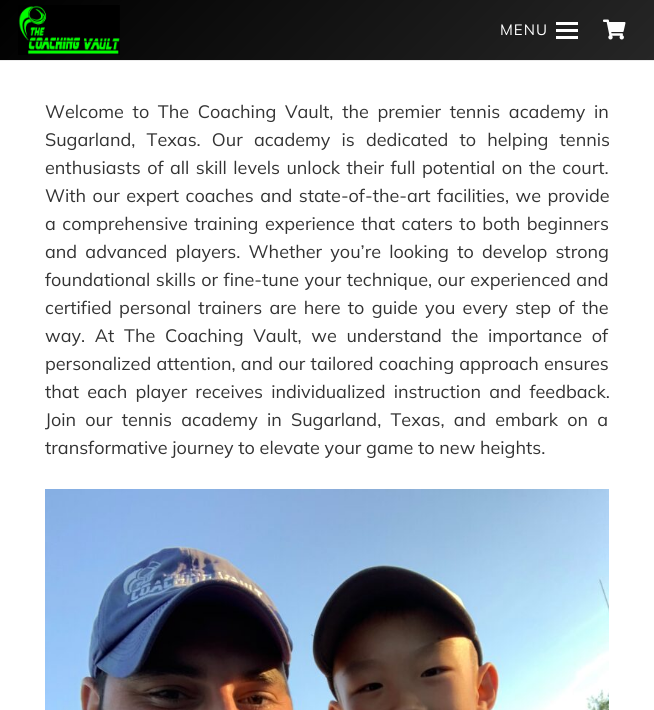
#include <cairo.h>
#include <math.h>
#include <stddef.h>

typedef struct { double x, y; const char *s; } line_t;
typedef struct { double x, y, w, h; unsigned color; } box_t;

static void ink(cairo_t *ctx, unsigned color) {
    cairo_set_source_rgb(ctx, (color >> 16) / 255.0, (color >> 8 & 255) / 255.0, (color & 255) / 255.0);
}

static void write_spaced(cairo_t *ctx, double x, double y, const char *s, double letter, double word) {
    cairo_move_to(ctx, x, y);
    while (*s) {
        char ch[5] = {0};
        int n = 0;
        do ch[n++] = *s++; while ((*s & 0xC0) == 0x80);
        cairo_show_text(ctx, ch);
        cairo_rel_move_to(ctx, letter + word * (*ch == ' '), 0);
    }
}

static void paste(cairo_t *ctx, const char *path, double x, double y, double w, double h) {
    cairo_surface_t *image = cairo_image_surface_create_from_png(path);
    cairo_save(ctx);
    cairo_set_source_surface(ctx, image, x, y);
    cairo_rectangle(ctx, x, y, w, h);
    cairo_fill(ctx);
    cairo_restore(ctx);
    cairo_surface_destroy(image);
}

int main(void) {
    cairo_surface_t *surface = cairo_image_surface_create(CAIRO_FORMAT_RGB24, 654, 710);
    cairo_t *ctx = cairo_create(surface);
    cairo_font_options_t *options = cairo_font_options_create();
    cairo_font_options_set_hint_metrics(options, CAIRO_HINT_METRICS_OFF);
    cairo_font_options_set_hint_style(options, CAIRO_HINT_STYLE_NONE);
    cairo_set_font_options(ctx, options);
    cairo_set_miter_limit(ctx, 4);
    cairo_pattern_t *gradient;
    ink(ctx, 0xFFFFFF);
    cairo_paint(ctx);
    cairo_set_source_rgba(ctx, 0, 0, 0, 0.08);
    cairo_rectangle(ctx, 0, 60, 654, 1);
    cairo_fill(ctx);
    gradient = cairo_pattern_create_linear(148, -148, 506, 209);
    cairo_pattern_add_color_stop_rgba(gradient, 0, 0, 0, 0, 1);
    cairo_pattern_add_color_stop_rgba(gradient, 1, 0.149, 0.149, 0.149, 1);
    cairo_set_source(ctx, gradient);
    cairo_pattern_destroy(gradient);
    cairo_rectangle(ctx, 0, 0, 654, 60);
    cairo_fill(ctx);
    paste(ctx, "media/1.png", 18, 5, 102, 50);
    cairo_select_font_face(ctx, "Mulish", CAIRO_FONT_SLANT_NORMAL, CAIRO_FONT_WEIGHT_NORMAL);
    cairo_set_font_size(ctx, 15);
    ink(ctx, 0xFFFFFF);
    write_spaced(ctx, 500, 35, "MENU", 1, 0);
    {
        static const box_t items[] = {
            {556, 29, 22, 3, 0xFFFFFF},
            {556, 22, 22, 3, 0xFFFFFF},
            {556, 36, 22, 3, 0xFFFFFF},
        };
        for (size_t i = 0; i < sizeof items / sizeof *items; i++) {
            ink(ctx, items[i].color);
            cairo_rectangle(ctx, items[i].x, items[i].y, items[i].w, items[i].h);
            cairo_fill(ctx);
        }
    }
    paste(ctx, "media/2.png", 603, 19, 23, 21);
    cairo_set_font_size(ctx, 18);
    ink(ctx, 0x333333);
    write_spaced(ctx, 45, 118, "Welcome to The Coaching Vault, the premier tennis academy in", 0, 4);
    write_spaced(ctx, 45, 146, "Sugarland, Texas. Our academy is dedicated to helping tennis", 0, 6.5);
    {
        static const line_t items[] = {
            {45, 174, "enthusiasts of all skill levels unlock their full potential on the court."},
            {45, 202, "With our expert coaches and state-of-the-art facilities, we provide"},
            {45, 230, "a comprehensive training experience that caters to both beginners"},
        };
        for (size_t i = 0; i < sizeof items / sizeof *items; i++) {
            write_spaced(ctx, items[i].x, items[i].y, items[i].s, 0, 1.75);
        }
    }
    write_spaced(ctx, 45, 258, "and advanced players. Whether you’re looking to develop strong", 0, 3.5);
    write_spaced(ctx, 45, 286, "foundational skills or fine-tune your technique, our experienced and", 0, 0.75);
    write_spaced(ctx, 45, 314, "certified personal trainers are here to guide you every step of the", 0, 2.6);
    write_spaced(ctx, 45, 342, "way. At The Coaching Vault, we understand the importance of", 0, 5);
    write_spaced(ctx, 45, 370, "personalized attention, and our tailored coaching approach ensures", 0, 0.5);
    write_spaced(ctx, 45, 398, "that each player receives individualized instruction and feedback.", 0, 3.5);
    write_spaced(ctx, 45, 426, "Join our tennis academy in Sugarland, Texas, and embark on a", 0, 4.5);
    cairo_move_to(ctx, 45, 454);
    cairo_show_text(ctx, "transformative journey to elevate your game to new heights.");
    paste(ctx, "media/3.png", 45, 489, 564, 221);
    cairo_surface_write_to_png(surface, "image.png");
    cairo_font_options_destroy(options);
    cairo_destroy(ctx);
    cairo_surface_destroy(surface);
    return 0;
}
